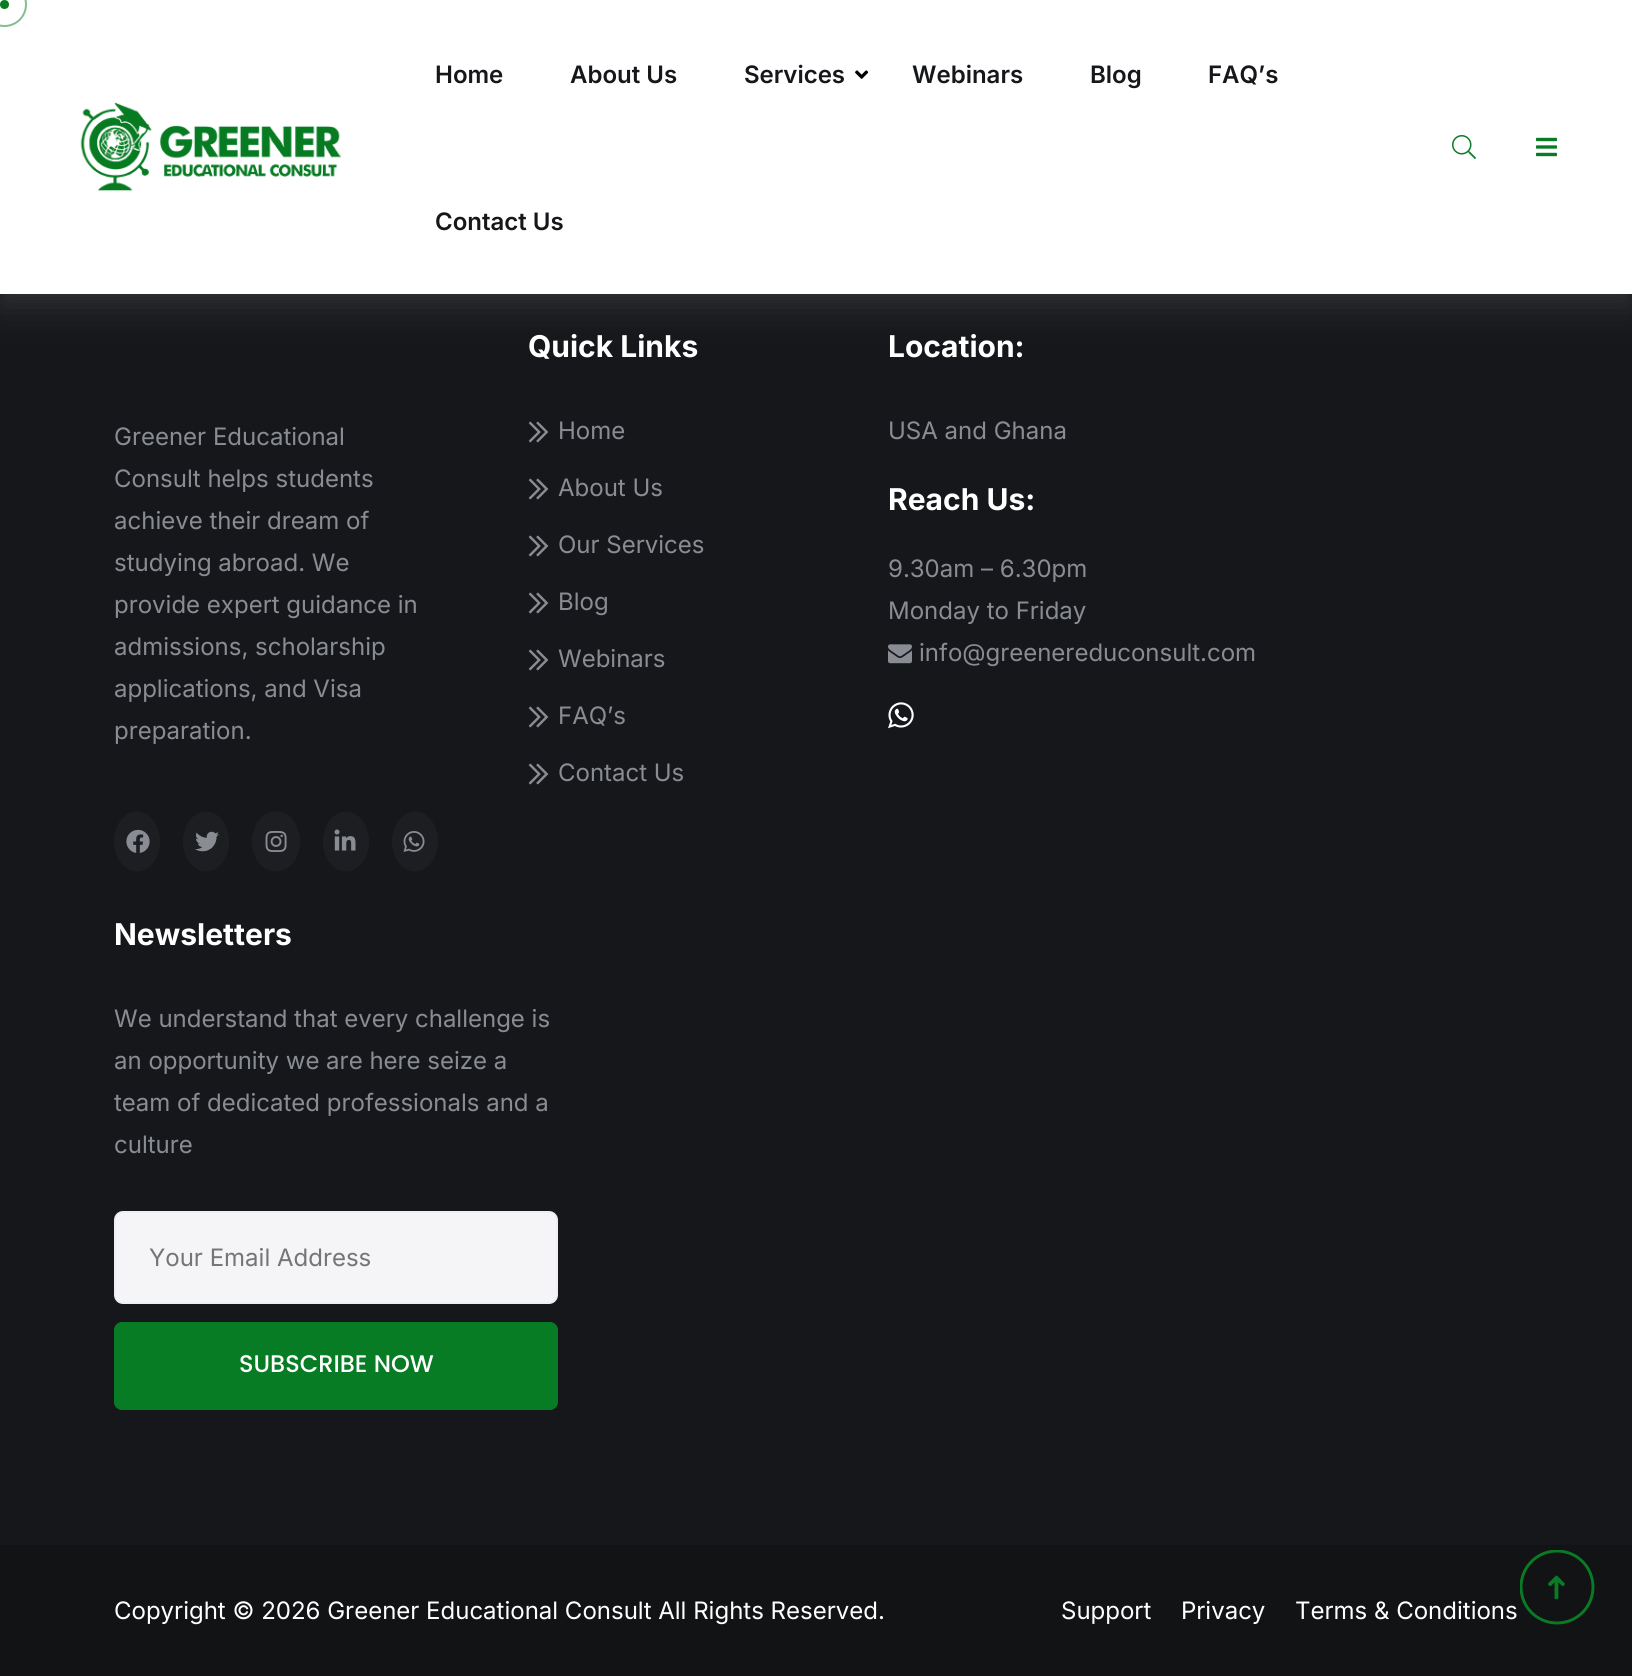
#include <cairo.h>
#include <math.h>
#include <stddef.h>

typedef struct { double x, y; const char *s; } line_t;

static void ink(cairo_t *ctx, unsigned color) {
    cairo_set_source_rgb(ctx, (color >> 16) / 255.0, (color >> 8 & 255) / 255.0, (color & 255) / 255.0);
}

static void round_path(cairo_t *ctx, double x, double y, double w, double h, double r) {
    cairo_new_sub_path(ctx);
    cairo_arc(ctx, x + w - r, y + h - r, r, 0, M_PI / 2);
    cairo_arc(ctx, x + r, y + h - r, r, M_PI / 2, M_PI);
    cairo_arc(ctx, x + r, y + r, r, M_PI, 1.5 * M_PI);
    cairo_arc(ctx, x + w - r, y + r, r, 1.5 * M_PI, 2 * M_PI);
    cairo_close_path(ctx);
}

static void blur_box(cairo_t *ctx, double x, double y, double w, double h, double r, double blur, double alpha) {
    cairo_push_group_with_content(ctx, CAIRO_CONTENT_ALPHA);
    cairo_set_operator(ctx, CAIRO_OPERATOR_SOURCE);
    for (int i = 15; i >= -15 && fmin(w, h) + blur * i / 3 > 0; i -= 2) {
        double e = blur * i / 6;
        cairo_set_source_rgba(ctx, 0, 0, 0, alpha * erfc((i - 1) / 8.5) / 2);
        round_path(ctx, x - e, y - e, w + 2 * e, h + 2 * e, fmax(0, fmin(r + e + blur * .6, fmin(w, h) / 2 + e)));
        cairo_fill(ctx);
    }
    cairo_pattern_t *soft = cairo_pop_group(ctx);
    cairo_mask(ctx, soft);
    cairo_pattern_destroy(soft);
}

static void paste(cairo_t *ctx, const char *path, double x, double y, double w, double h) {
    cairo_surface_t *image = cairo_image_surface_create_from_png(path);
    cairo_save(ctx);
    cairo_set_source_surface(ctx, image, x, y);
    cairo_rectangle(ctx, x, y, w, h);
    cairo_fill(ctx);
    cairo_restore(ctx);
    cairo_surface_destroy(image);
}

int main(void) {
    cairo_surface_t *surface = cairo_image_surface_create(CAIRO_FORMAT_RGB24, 1632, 1676);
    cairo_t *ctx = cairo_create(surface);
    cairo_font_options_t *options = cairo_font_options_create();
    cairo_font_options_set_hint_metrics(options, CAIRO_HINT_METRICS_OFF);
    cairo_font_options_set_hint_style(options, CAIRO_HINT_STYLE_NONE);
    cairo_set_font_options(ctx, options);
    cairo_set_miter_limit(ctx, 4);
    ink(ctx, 0x16171A);
    cairo_paint(ctx);
    ink(ctx, 0x959DA5);
    blur_box(ctx, 0, 12, 1632, 294, 0, 18, 0.2);
    ink(ctx, 0xFFFFFF);
    cairo_rectangle(ctx, 0, 0, 1632, 294);
    cairo_fill(ctx);
    cairo_arc(ctx, 4.5, 4.5, 21.5, 0, 2 * M_PI);
    ink(ctx, 0x84BE92);
    cairo_stroke(ctx);
    ink(ctx, 0x087C24);
    cairo_arc(ctx, 4.5, 4.5, 4.5, 0, 2 * M_PI);
    cairo_fill(ctx);
    paste(ctx, "media/1.png", 80, 102, 262, 90);
    cairo_select_font_face(ctx, "Inter SemiBold", CAIRO_FONT_SLANT_NORMAL, CAIRO_FONT_WEIGHT_NORMAL);
    cairo_set_font_size(ctx, 24);
    ink(ctx, 0x16171A);
    {
        static const line_t items[] = {
            {435, 83, "Home"},
            {570, 83, "About Us"},
            {744, 83, "Services"},
        };
        for (size_t i = 0; i < sizeof items / sizeof *items; i++) {
            cairo_move_to(ctx, items[i].x, items[i].y);
            cairo_show_text(ctx, items[i].s);
        }
    }
    paste(ctx, "media/2.png", 855, 70, 14, 9);
    {
        static const line_t items[] = {
            {912, 83, "Webinars"},
            {1090, 83, "Blog"},
            {1208, 83, "FAQ’s"},
            {435, 230, "Contact Us"},
        };
        for (size_t i = 0; i < sizeof items / sizeof *items; i++) {
            cairo_move_to(ctx, items[i].x, items[i].y);
            cairo_show_text(ctx, items[i].s);
        }
    }
    paste(ctx, "media/3.png", 1452, 135, 24, 24);
    paste(ctx, "media/4.png", 1536, 137, 21, 20);
    cairo_select_font_face(ctx, "Inter", CAIRO_FONT_SLANT_NORMAL, CAIRO_FONT_WEIGHT_NORMAL);
    ink(ctx, 0x8A8C94);
    {
        static const line_t items[] = {
            {114, 445, "Greener Educational"},
            {114, 487, "Consult helps students"},
            {114, 529, "achieve their dream of"},
            {114, 571, "studying abroad. We"},
            {114, 613, "provide expert guidance in"},
            {114, 655, "admissions, scholarship"},
            {114, 697, "applications, and Visa"},
            {114, 739, "preparation."},
        };
        for (size_t i = 0; i < sizeof items / sizeof *items; i++) {
            cairo_move_to(ctx, items[i].x, items[i].y);
            cairo_show_text(ctx, items[i].s);
        }
    }
    ink(ctx, 0x1D1E21);
    cairo_new_path(ctx);
    cairo_move_to(ctx, 137, 811.5);
    cairo_curve_to(ctx, 149.5, 811.5, 160, 825, 160, 841.5);
    cairo_curve_to(ctx, 160, 858, 149.5, 871.5, 137, 871.5);
    cairo_curve_to(ctx, 124.5, 871.5, 114, 858, 114, 841.5);
    cairo_curve_to(ctx, 114, 825, 124.5, 811.5, 137, 811.5);
    cairo_close_path(ctx);
    cairo_fill(ctx);
    paste(ctx, "media/5.png", 126, 829, 24, 24);
    cairo_new_path(ctx);
    cairo_move_to(ctx, 206, 811.5);
    cairo_curve_to(ctx, 218.5, 811.5, 229, 825, 229, 841.5);
    cairo_curve_to(ctx, 229, 858, 218.5, 871.5, 206, 871.5);
    cairo_curve_to(ctx, 193.5, 871.5, 183, 858, 183, 841.5);
    cairo_curve_to(ctx, 183, 825, 193.5, 811.5, 206, 811.5);
    cairo_close_path(ctx);
    cairo_fill(ctx);
    paste(ctx, "media/6.png", 195, 831, 24, 21);
    cairo_new_path(ctx);
    cairo_move_to(ctx, 276, 811.5);
    cairo_curve_to(ctx, 289.5, 811.5, 300, 825, 300, 841.5);
    cairo_curve_to(ctx, 300, 858, 289.5, 871.5, 276, 871.5);
    cairo_curve_to(ctx, 262.5, 871.5, 252, 858, 252, 841.5);
    cairo_curve_to(ctx, 252, 825, 262.5, 811.5, 276, 811.5);
    cairo_close_path(ctx);
    cairo_fill(ctx);
    paste(ctx, "media/7.png", 265, 831, 22, 21);
    cairo_new_path(ctx);
    cairo_move_to(ctx, 346, 811.5);
    cairo_curve_to(ctx, 358.5, 811.5, 369, 825, 369, 841.5);
    cairo_curve_to(ctx, 369, 858, 358.5, 871.5, 346, 871.5);
    cairo_curve_to(ctx, 333.5, 871.5, 323, 858, 323, 841.5);
    cairo_curve_to(ctx, 323, 825, 333.5, 811.5, 346, 811.5);
    cairo_close_path(ctx);
    cairo_fill(ctx);
    paste(ctx, "media/8.png", 334, 829, 22, 22);
    cairo_new_path(ctx);
    cairo_move_to(ctx, 415, 811.5);
    cairo_curve_to(ctx, 427.5, 811.5, 438, 825, 438, 841.5);
    cairo_curve_to(ctx, 438, 858, 427.5, 871.5, 415, 871.5);
    cairo_curve_to(ctx, 402.5, 871.5, 392, 858, 392, 841.5);
    cairo_curve_to(ctx, 392, 825, 402.5, 811.5, 415, 811.5);
    cairo_close_path(ctx);
    cairo_fill(ctx);
    paste(ctx, "media/9.png", 403, 831, 22, 21);
    cairo_select_font_face(ctx, "Inter", CAIRO_FONT_SLANT_NORMAL, CAIRO_FONT_WEIGHT_BOLD);
    cairo_set_font_size(ctx, 30);
    ink(ctx, 0xFFFFFF);
    cairo_move_to(ctx, 528, 357);
    cairo_show_text(ctx, "Quick Links");
    paste(ctx, "media/10.png", 528, 421, 21, 22);
    cairo_select_font_face(ctx, "Inter", CAIRO_FONT_SLANT_NORMAL, CAIRO_FONT_WEIGHT_NORMAL);
    cairo_set_font_size(ctx, 24);
    ink(ctx, 0x8A8C94);
    cairo_move_to(ctx, 558, 439);
    cairo_show_text(ctx, "Home");
    paste(ctx, "media/10.png", 528, 478, 21, 22);
    cairo_move_to(ctx, 558, 496);
    cairo_show_text(ctx, "About Us");
    paste(ctx, "media/10.png", 528, 535, 21, 22);
    cairo_move_to(ctx, 558, 553);
    cairo_show_text(ctx, "Our Services");
    paste(ctx, "media/10.png", 528, 592, 21, 22);
    cairo_move_to(ctx, 558, 610);
    cairo_show_text(ctx, "Blog");
    paste(ctx, "media/10.png", 528, 649, 21, 22);
    cairo_move_to(ctx, 558, 667);
    cairo_show_text(ctx, "Webinars");
    paste(ctx, "media/10.png", 528, 706, 21, 22);
    cairo_move_to(ctx, 558, 724);
    cairo_show_text(ctx, "FAQ’s");
    paste(ctx, "media/10.png", 528, 763, 21, 22);
    cairo_move_to(ctx, 558, 781);
    cairo_show_text(ctx, "Contact Us");
    cairo_select_font_face(ctx, "Inter", CAIRO_FONT_SLANT_NORMAL, CAIRO_FONT_WEIGHT_BOLD);
    cairo_set_font_size(ctx, 30);
    ink(ctx, 0xFFFFFF);
    cairo_move_to(ctx, 888, 357);
    cairo_show_text(ctx, "Location:");
    cairo_select_font_face(ctx, "Inter", CAIRO_FONT_SLANT_NORMAL, CAIRO_FONT_WEIGHT_NORMAL);
    cairo_set_font_size(ctx, 24);
    ink(ctx, 0x8A8C94);
    cairo_move_to(ctx, 888, 439);
    cairo_show_text(ctx, "USA and Ghana");
    cairo_select_font_face(ctx, "Inter", CAIRO_FONT_SLANT_NORMAL, CAIRO_FONT_WEIGHT_BOLD);
    cairo_set_font_size(ctx, 30);
    ink(ctx, 0xFFFFFF);
    cairo_move_to(ctx, 888, 510);
    cairo_show_text(ctx, "Reach Us:");
    cairo_select_font_face(ctx, "Inter", CAIRO_FONT_SLANT_NORMAL, CAIRO_FONT_WEIGHT_NORMAL);
    cairo_set_font_size(ctx, 24);
    ink(ctx, 0x8A8C94);
    cairo_move_to(ctx, 888, 577);
    cairo_show_text(ctx, "9.30am – 6.30pm");
    cairo_move_to(ctx, 888, 619);
    cairo_show_text(ctx, "Monday to Friday");
    paste(ctx, "media/11.png", 888, 644, 24, 20);
    cairo_move_to(ctx, 919, 661);
    cairo_show_text(ctx, "info@greenereduconsult.com");
    paste(ctx, "media/12.png", 888, 702, 26, 27);
    cairo_select_font_face(ctx, "Inter", CAIRO_FONT_SLANT_NORMAL, CAIRO_FONT_WEIGHT_BOLD);
    cairo_set_font_size(ctx, 30);
    ink(ctx, 0xFFFFFF);
    cairo_move_to(ctx, 114, 945);
    cairo_show_text(ctx, "Newsletters");
    cairo_select_font_face(ctx, "Inter", CAIRO_FONT_SLANT_NORMAL, CAIRO_FONT_WEIGHT_NORMAL);
    cairo_set_font_size(ctx, 24);
    ink(ctx, 0x8A8C94);
    {
        static const line_t items[] = {
            {114, 1027, "We understand that every challenge is"},
            {114, 1069, "an opportunity we are here seize a"},
            {114, 1111, "team of dedicated professionals and a"},
            {114, 1153, "culture"},
        };
        for (size_t i = 0; i < sizeof items / sizeof *items; i++) {
            cairo_move_to(ctx, items[i].x, items[i].y);
            cairo_show_text(ctx, items[i].s);
        }
    }
    ink(ctx, 0xF5F5F7);
    round_path(ctx, 115, 1212, 442, 91, 8);
    cairo_fill_preserve(ctx);
    ink(ctx, 0xEEEFF4);
    cairo_stroke(ctx);
    ink(ctx, 0x757575);
    cairo_move_to(ctx, 149, 1266);
    cairo_show_text(ctx, "Your Email Address");
    ink(ctx, 0x087C24);
    round_path(ctx, 114, 1322, 444, 88, 8);
    cairo_fill(ctx);
    cairo_select_font_face(ctx, "Poppins Medium", CAIRO_FONT_SLANT_NORMAL, CAIRO_FONT_WEIGHT_NORMAL);
    ink(ctx, 0xFFFFFF);
    cairo_move_to(ctx, 239, 1372);
    cairo_show_text(ctx, "SUBSCRIBE NOW");
    ink(ctx, 0x121315);
    cairo_rectangle(ctx, 0, 1545, 1632, 131);
    cairo_fill(ctx);
    cairo_select_font_face(ctx, "Inter", CAIRO_FONT_SLANT_NORMAL, CAIRO_FONT_WEIGHT_NORMAL);
    ink(ctx, 0xFFFFFF);
    {
        static const line_t items[] = {
            {114, 1619, "Copyright © 2026 Greener Educational Consult All Rights Reserved."},
            {1061, 1619, "Support"},
            {1181, 1619, "Privacy"},
            {1295, 1619, "Terms & Conditions"},
        };
        for (size_t i = 0; i < sizeof items / sizeof *items; i++) {
            cairo_move_to(ctx, items[i].x, items[i].y);
            cairo_show_text(ctx, items[i].s);
        }
    }
    cairo_save(ctx);
    cairo_rectangle(ctx, 1520, 1550, 75, 75);
    cairo_clip(ctx);
    cairo_new_path(ctx);
    cairo_move_to(ctx, 1557, 1551);
    cairo_curve_to(ctx, 1577, 1551, 1593, 1567, 1593, 1587);
    cairo_curve_to(ctx, 1593, 1607, 1577, 1623, 1557, 1623);
    cairo_curve_to(ctx, 1537, 1623, 1521, 1607, 1521, 1587);
    cairo_curve_to(ctx, 1521, 1567, 1537, 1551, 1557, 1551);
    ink(ctx, 0x087C24);
    cairo_set_line_width(ctx, 2.9);
    cairo_stroke(ctx);
    cairo_restore(ctx);
    paste(ctx, "media/13.png", 1548, 1575, 17, 25);
    cairo_surface_write_to_png(surface, "image.png");
    cairo_font_options_destroy(options);
    cairo_destroy(ctx);
    cairo_surface_destroy(surface);
    return 0;
}
